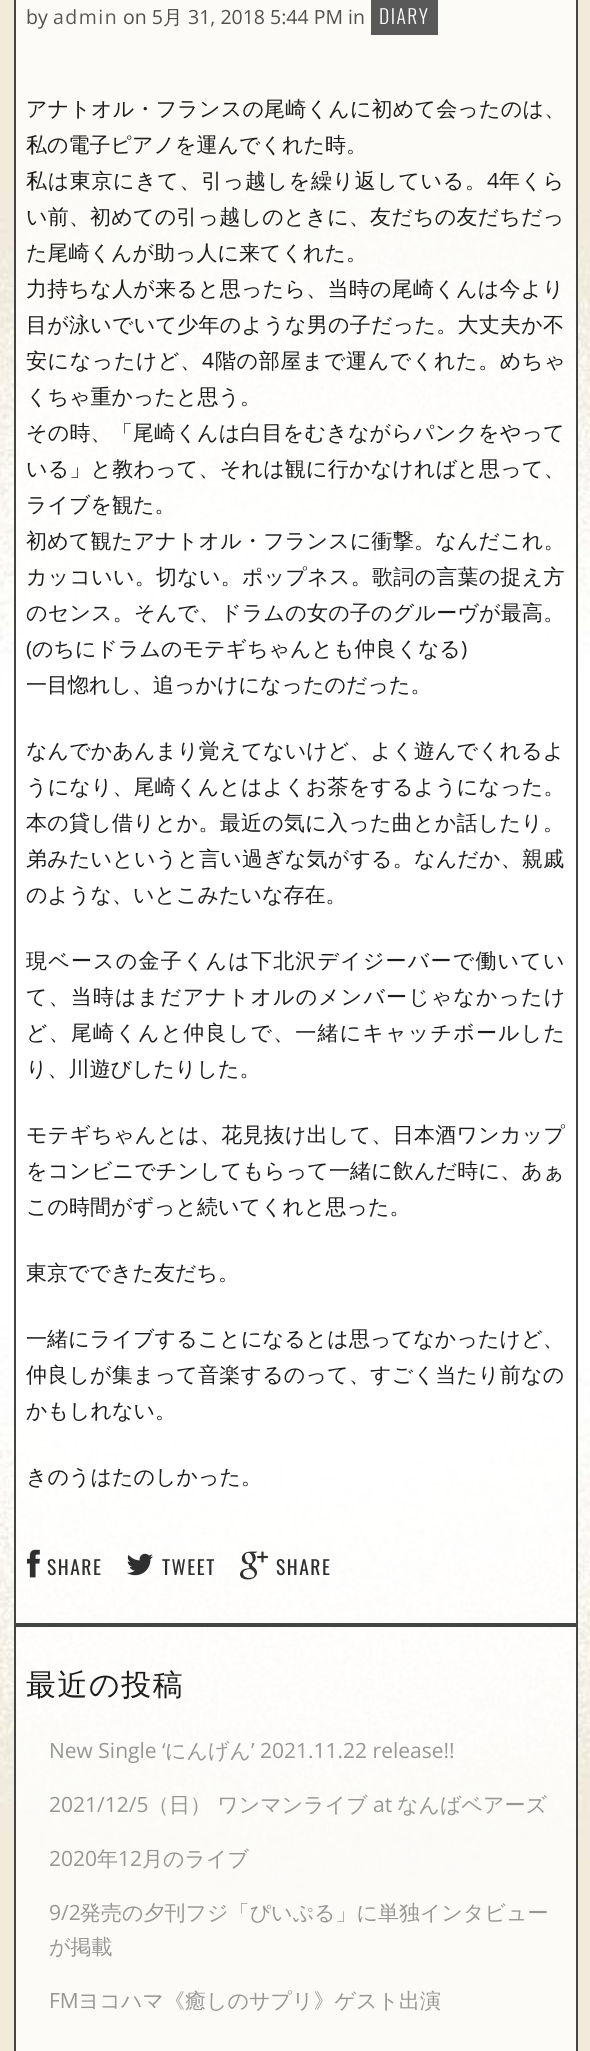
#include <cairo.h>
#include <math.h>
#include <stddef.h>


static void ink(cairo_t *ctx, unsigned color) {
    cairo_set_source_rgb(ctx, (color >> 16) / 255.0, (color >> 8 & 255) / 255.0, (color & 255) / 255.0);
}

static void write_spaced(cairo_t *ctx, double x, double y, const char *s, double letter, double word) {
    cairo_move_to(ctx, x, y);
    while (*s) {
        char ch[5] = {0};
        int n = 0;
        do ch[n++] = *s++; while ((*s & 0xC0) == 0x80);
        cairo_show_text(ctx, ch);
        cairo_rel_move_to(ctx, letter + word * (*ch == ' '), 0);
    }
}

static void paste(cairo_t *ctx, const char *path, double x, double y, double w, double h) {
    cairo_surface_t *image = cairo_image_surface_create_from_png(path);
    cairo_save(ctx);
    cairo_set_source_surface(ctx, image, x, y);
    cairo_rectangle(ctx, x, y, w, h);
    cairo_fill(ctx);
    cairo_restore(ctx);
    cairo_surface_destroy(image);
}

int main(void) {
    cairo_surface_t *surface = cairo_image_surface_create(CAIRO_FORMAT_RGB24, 590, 2051);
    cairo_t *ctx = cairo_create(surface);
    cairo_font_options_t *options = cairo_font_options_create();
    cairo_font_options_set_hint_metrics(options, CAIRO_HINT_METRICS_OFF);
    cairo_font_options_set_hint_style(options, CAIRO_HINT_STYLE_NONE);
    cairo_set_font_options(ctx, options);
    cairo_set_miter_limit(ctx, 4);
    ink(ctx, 0xFFFFFF);
    cairo_paint(ctx);
    paste(ctx, "media/1.png", 0, 0, 590, 2051);
    cairo_set_source_rgba(ctx, 1, 1, 1, 0.8);
    cairo_rectangle(ctx, 15, -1, 562, 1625);
    cairo_fill_preserve(ctx);
    ink(ctx, 0x434543);
    cairo_stroke(ctx);
    cairo_select_font_face(ctx, "Open Sans", CAIRO_FONT_SLANT_NORMAL, CAIRO_FONT_WEIGHT_NORMAL);
    cairo_set_font_size(ctx, 19.5);
    ink(ctx, 0x4F4F4F);
    cairo_move_to(ctx, 26, 24);
    cairo_show_text(ctx, "by");
    ink(ctx, 0x595959);
    write_spaced(ctx, 53, 24, "admin", 1.5, 0);
    ink(ctx, 0x4F4F4F);
    cairo_move_to(ctx, 123, 24);
    cairo_show_text(ctx, "on 5");
    cairo_select_font_face(ctx, "WenQuanYi Zen Hei Medium", CAIRO_FONT_SLANT_NORMAL, CAIRO_FONT_WEIGHT_NORMAL);
    cairo_move_to(ctx, 163, 24);
    cairo_show_text(ctx, "月");
    cairo_select_font_face(ctx, "Open Sans", CAIRO_FONT_SLANT_NORMAL, CAIRO_FONT_WEIGHT_NORMAL);
    cairo_move_to(ctx, 188, 24);
    cairo_show_text(ctx, "31, 2018 5:44 PM in");
    ink(ctx, 0x595959);
    cairo_rectangle(ctx, 371, 0, 67, 35);
    cairo_fill(ctx);
    cairo_select_font_face(ctx, "Oswald Light", CAIRO_FONT_SLANT_NORMAL, CAIRO_FONT_WEIGHT_NORMAL);
    ink(ctx, 0xFFFFFF);
    write_spaced(ctx, 379, 24, "DIARY", 1.5, 0);
    cairo_select_font_face(ctx, "WenQuanYi Zen Hei Medium", CAIRO_FONT_SLANT_NORMAL, CAIRO_FONT_WEIGHT_NORMAL);
    cairo_set_font_size(ctx, 21);
    ink(ctx, 0x1D1D1D);
    write_spaced(ctx, 26, 116, "アナトオル・フランスの尾崎くんに初めて会ったのは、", 0.2, 0);
    cairo_move_to(ctx, 26, 152);
    cairo_show_text(ctx, "私の電子ピアノを運んでくれた時。");
    write_spaced(ctx, 26, 188, "私は東京にきて、引っ越しを繰り返している。", 0.65, 0);
    cairo_select_font_face(ctx, "Open Sans", CAIRO_FONT_SLANT_NORMAL, CAIRO_FONT_WEIGHT_NORMAL);
    write_spaced(ctx, 487, 188, "4", 0.65, 0);
    cairo_select_font_face(ctx, "WenQuanYi Zen Hei Medium", CAIRO_FONT_SLANT_NORMAL, CAIRO_FONT_WEIGHT_NORMAL);
    write_spaced(ctx, 499, 188, "年くら", 0.65, 0);
    write_spaced(ctx, 26, 224, "い前、初めての引っ越しのときに、友だちの友だちだっ", 0.2, 0);
    cairo_move_to(ctx, 26, 260);
    cairo_show_text(ctx, "た尾崎くんが助っ人に来てくれた。");
    write_spaced(ctx, 26, 296, "力持ちな人が来ると思ったら、当時の尾崎くんは今より", 0.25, 0);
    write_spaced(ctx, 26, 332, "目が泳いでいて少年のような男の子だった。大丈夫か不", 0.25, 0);
    write_spaced(ctx, 26, 368, "安になったけど、", 0.6, 0);
    cairo_select_font_face(ctx, "Open Sans", CAIRO_FONT_SLANT_NORMAL, CAIRO_FONT_WEIGHT_NORMAL);
    write_spaced(ctx, 202, 368, "4", 0.6, 0);
    cairo_select_font_face(ctx, "WenQuanYi Zen Hei Medium", CAIRO_FONT_SLANT_NORMAL, CAIRO_FONT_WEIGHT_NORMAL);
    write_spaced(ctx, 215, 368, "階の部屋まで運んでくれた。めちゃ", 0.6, 0);
    cairo_move_to(ctx, 26, 404);
    cairo_show_text(ctx, "くちゃ重かったと思う。");
    write_spaced(ctx, 26, 440, "その時、「尾崎くんは白目をむきながらパンクをやって", 0.2, 0);
    write_spaced(ctx, 26, 476, "いる」と教わって、それは観に行かなければと思って、", 0.2, 0);
    cairo_move_to(ctx, 26, 512);
    cairo_show_text(ctx, "ライブを観た。");
    write_spaced(ctx, 26, 548, "初めて観たアナトオル・フランスに衝撃。なんだこれ。", 0.2, 0);
    write_spaced(ctx, 26, 584, "カッコいい。切ない。ポップネス。歌詞の言葉の捉え方", 0.25, 0);
    write_spaced(ctx, 26, 620, "のセンス。そんで、ドラムの女の子のグルーヴが最高。", 0.2, 0);
    cairo_select_font_face(ctx, "Open Sans", CAIRO_FONT_SLANT_NORMAL, CAIRO_FONT_WEIGHT_NORMAL);
    cairo_move_to(ctx, 26, 656);
    cairo_show_text(ctx, "(");
    cairo_select_font_face(ctx, "WenQuanYi Zen Hei Medium", CAIRO_FONT_SLANT_NORMAL, CAIRO_FONT_WEIGHT_NORMAL);
    cairo_move_to(ctx, 32, 656);
    cairo_show_text(ctx, "のちにドラムのモテギちゃんとも仲良くなる");
    cairo_select_font_face(ctx, "Open Sans", CAIRO_FONT_SLANT_NORMAL, CAIRO_FONT_WEIGHT_NORMAL);
    cairo_move_to(ctx, 461, 656);
    cairo_show_text(ctx, ")");
    cairo_select_font_face(ctx, "WenQuanYi Zen Hei Medium", CAIRO_FONT_SLANT_NORMAL, CAIRO_FONT_WEIGHT_NORMAL);
    cairo_move_to(ctx, 26, 692);
    cairo_show_text(ctx, "一目惚れし、追っかけになったのだった。");
    write_spaced(ctx, 26, 758, "なんでかあんまり覚えてないけど、よく遊んでくれるよ", 0.1, 0);
    write_spaced(ctx, 26, 794, "うになり、尾崎くんとはよくお茶をするようになった。", 0.15, 0);
    write_spaced(ctx, 26, 830, "本の貸し借りとか。最近の気に入った曲とか話したり。", 0.25, 0);
    write_spaced(ctx, 26, 866, "弟みたいというと言い過ぎな気がする。なんだか、親戚", 0.2, 0);
    cairo_move_to(ctx, 26, 902);
    cairo_show_text(ctx, "のような、いとこみたいな存在。");
    write_spaced(ctx, 26, 968, "現ベースの金子くんは下北沢デイジーバーで働いてい", 1.2, 0);
    write_spaced(ctx, 26, 1004, "て、当時はまだアナトオルのメンバーじゃなかったけ", 1.1, 0);
    write_spaced(ctx, 26, 1040, "ど、尾崎くんと仲良しで、一緒にキャッチボールした", 1.2, 0);
    cairo_move_to(ctx, 26, 1076);
    cairo_show_text(ctx, "り、川遊びしたりした。");
    write_spaced(ctx, 26, 1142, "モテギちゃんとは、花見抜け出して、日本酒ワンカップ", 0.25, 0);
    write_spaced(ctx, 26, 1178, "をコンビニでチンしてもらって一緒に飲んだ時に、あぁ", 0.15, 0);
    cairo_move_to(ctx, 26, 1214);
    cairo_show_text(ctx, "この時間がずっと続いてくれと思った。");
    cairo_move_to(ctx, 26, 1280);
    cairo_show_text(ctx, "東京でできた友だち。");
    write_spaced(ctx, 26, 1346, "一緒にライブすることになるとは思ってなかったけど、", 0.1, 0);
    write_spaced(ctx, 26, 1382, "仲良しが集まって音楽するのって、すごく当たり前なの", 0.2, 0);
    cairo_move_to(ctx, 26, 1418);
    cairo_show_text(ctx, "かもしれない。");
    cairo_move_to(ctx, 26, 1484);
    cairo_show_text(ctx, "きのうはたのしかった。");
    paste(ctx, "media/2.png", 27, 1549, 13, 29);
    cairo_select_font_face(ctx, "Oswald", CAIRO_FONT_SLANT_NORMAL, CAIRO_FONT_WEIGHT_NORMAL);
    cairo_set_font_size(ctx, 19.5);
    ink(ctx, 0x2F2F2F);
    write_spaced(ctx, 47, 1575, "SHARE", 1.5, 0);
    paste(ctx, "media/3.png", 127, 1553, 26, 23);
    write_spaced(ctx, 162, 1575, "TWEET", 1.5, 0);
    paste(ctx, "media/4.png", 240, 1551, 28, 29);
    write_spaced(ctx, 276, 1575, "SHARE", 1.5, 0);
    cairo_set_source_rgba(ctx, 1, 1, 1, 0.8);
    cairo_rectangle(ctx, 15, 1626, 562, 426);
    cairo_fill_preserve(ctx);
    ink(ctx, 0x434543);
    cairo_stroke(ctx);
    cairo_select_font_face(ctx, "WenQuanYi Zen Hei Medium", CAIRO_FONT_SLANT_NORMAL, CAIRO_FONT_WEIGHT_NORMAL);
    cairo_set_font_size(ctx, 30);
    ink(ctx, 0x1D1D1D);
    write_spaced(ctx, 26, 1695, "最近の投稿", 1.5, 0);
    cairo_select_font_face(ctx, "Open Sans", CAIRO_FONT_SLANT_NORMAL, CAIRO_FONT_WEIGHT_NORMAL);
    cairo_set_font_size(ctx, 21);
    ink(ctx, 0x969696);
    cairo_move_to(ctx, 49, 1758);
    cairo_show_text(ctx, "New Single ‘");
    cairo_select_font_face(ctx, "WenQuanYi Zen Hei Medium", CAIRO_FONT_SLANT_NORMAL, CAIRO_FONT_WEIGHT_NORMAL);
    cairo_move_to(ctx, 165, 1758);
    cairo_show_text(ctx, "にんげん");
    cairo_select_font_face(ctx, "Open Sans", CAIRO_FONT_SLANT_NORMAL, CAIRO_FONT_WEIGHT_NORMAL);
    cairo_move_to(ctx, 251, 1758);
    cairo_show_text(ctx, "’ 2021.11.22 release!!");
    cairo_move_to(ctx, 49, 1812);
    cairo_show_text(ctx, "2021/12/5");
    cairo_select_font_face(ctx, "WenQuanYi Zen Hei Medium", CAIRO_FONT_SLANT_NORMAL, CAIRO_FONT_WEIGHT_NORMAL);
    cairo_move_to(ctx, 148, 1812);
    cairo_show_text(ctx, "（日） ワンマンライブ");
    cairo_select_font_face(ctx, "Open Sans", CAIRO_FONT_SLANT_NORMAL, CAIRO_FONT_WEIGHT_NORMAL);
    cairo_move_to(ctx, 373, 1812);
    cairo_show_text(ctx, "at");
    cairo_select_font_face(ctx, "WenQuanYi Zen Hei Medium", CAIRO_FONT_SLANT_NORMAL, CAIRO_FONT_WEIGHT_NORMAL);
    cairo_move_to(ctx, 397, 1812);
    cairo_show_text(ctx, "なんばベアーズ");
    cairo_select_font_face(ctx, "Open Sans", CAIRO_FONT_SLANT_NORMAL, CAIRO_FONT_WEIGHT_NORMAL);
    cairo_move_to(ctx, 49, 1866);
    cairo_show_text(ctx, "2020");
    cairo_select_font_face(ctx, "WenQuanYi Zen Hei Medium", CAIRO_FONT_SLANT_NORMAL, CAIRO_FONT_WEIGHT_NORMAL);
    cairo_move_to(ctx, 97, 1866);
    cairo_show_text(ctx, "年");
    cairo_select_font_face(ctx, "Open Sans", CAIRO_FONT_SLANT_NORMAL, CAIRO_FONT_WEIGHT_NORMAL);
    cairo_move_to(ctx, 118, 1866);
    cairo_show_text(ctx, "12");
    cairo_select_font_face(ctx, "WenQuanYi Zen Hei Medium", CAIRO_FONT_SLANT_NORMAL, CAIRO_FONT_WEIGHT_NORMAL);
    cairo_move_to(ctx, 142, 1866);
    cairo_show_text(ctx, "月のライブ");
    cairo_select_font_face(ctx, "Open Sans", CAIRO_FONT_SLANT_NORMAL, CAIRO_FONT_WEIGHT_NORMAL);
    cairo_move_to(ctx, 49, 1920);
    cairo_show_text(ctx, "9/2");
    cairo_select_font_face(ctx, "WenQuanYi Zen Hei Medium", CAIRO_FONT_SLANT_NORMAL, CAIRO_FONT_WEIGHT_NORMAL);
    cairo_move_to(ctx, 80, 1920);
    cairo_show_text(ctx, "発売の夕刊フジ「ぴいぷる」に単独インタビュー");
    cairo_move_to(ctx, 49, 1954);
    cairo_show_text(ctx, "が掲載");
    cairo_select_font_face(ctx, "Open Sans", CAIRO_FONT_SLANT_NORMAL, CAIRO_FONT_WEIGHT_NORMAL);
    cairo_move_to(ctx, 49, 2008);
    cairo_show_text(ctx, "FM");
    cairo_select_font_face(ctx, "WenQuanYi Zen Hei Medium", CAIRO_FONT_SLANT_NORMAL, CAIRO_FONT_WEIGHT_NORMAL);
    cairo_move_to(ctx, 78, 2008);
    cairo_show_text(ctx, "ヨコハマ《癒しのサプリ》ゲスト出演");
    cairo_surface_write_to_png(surface, "image.png");
    cairo_font_options_destroy(options);
    cairo_destroy(ctx);
    cairo_surface_destroy(surface);
    return 0;
}
